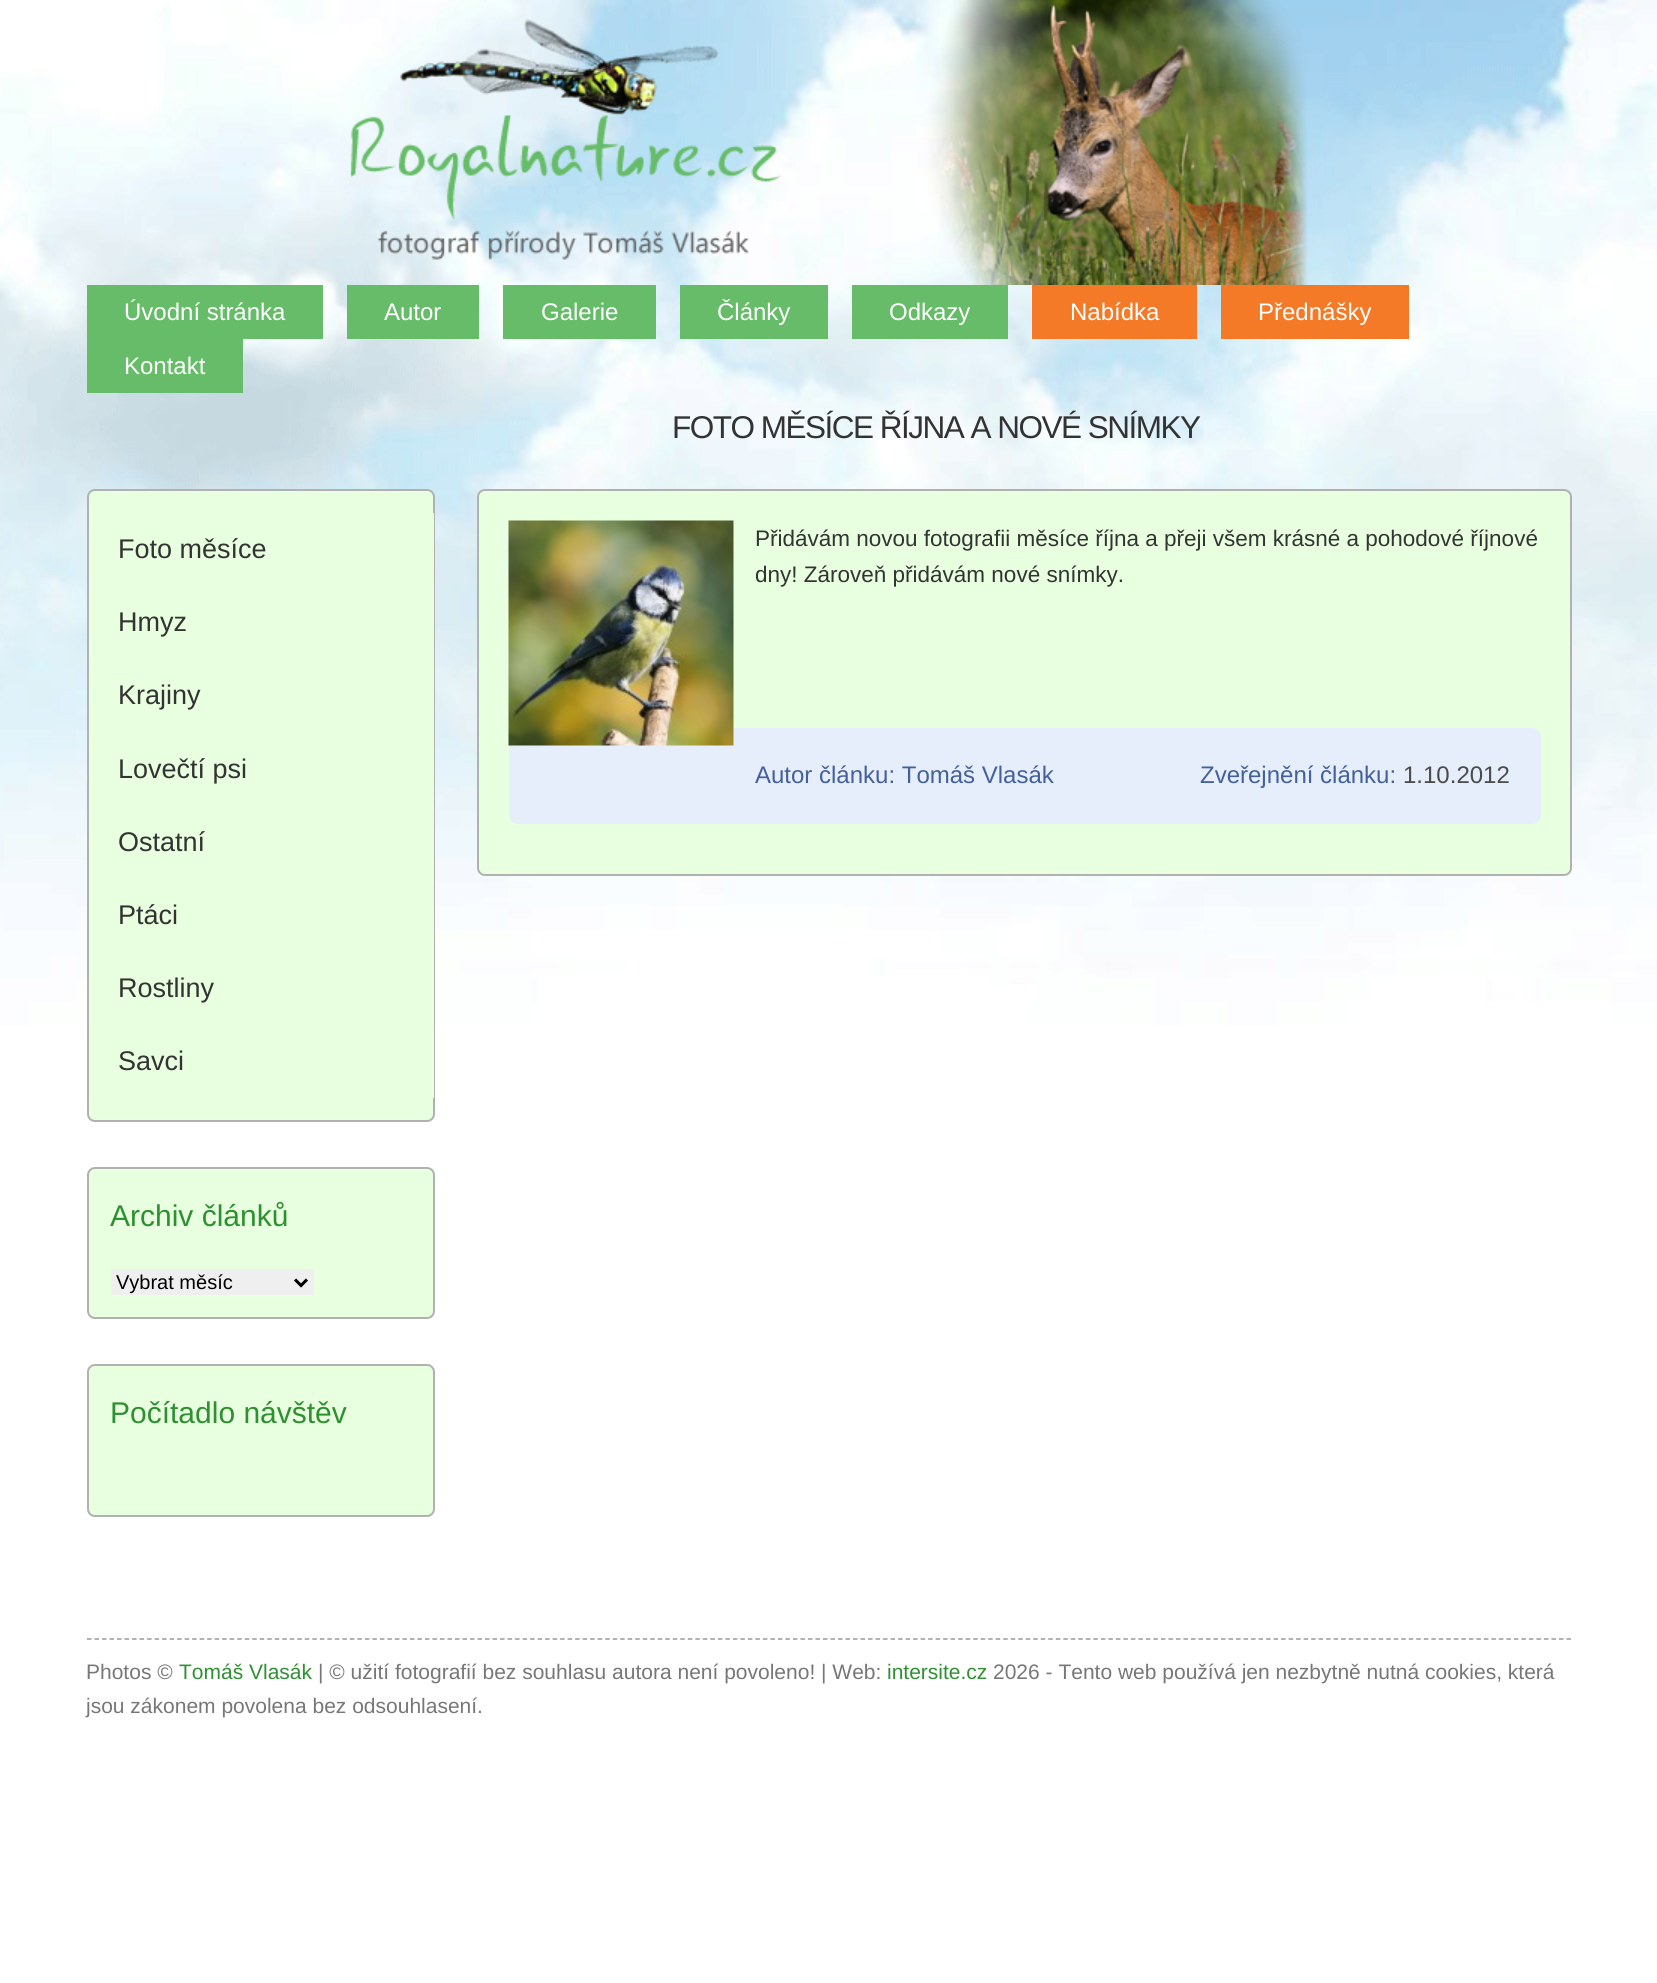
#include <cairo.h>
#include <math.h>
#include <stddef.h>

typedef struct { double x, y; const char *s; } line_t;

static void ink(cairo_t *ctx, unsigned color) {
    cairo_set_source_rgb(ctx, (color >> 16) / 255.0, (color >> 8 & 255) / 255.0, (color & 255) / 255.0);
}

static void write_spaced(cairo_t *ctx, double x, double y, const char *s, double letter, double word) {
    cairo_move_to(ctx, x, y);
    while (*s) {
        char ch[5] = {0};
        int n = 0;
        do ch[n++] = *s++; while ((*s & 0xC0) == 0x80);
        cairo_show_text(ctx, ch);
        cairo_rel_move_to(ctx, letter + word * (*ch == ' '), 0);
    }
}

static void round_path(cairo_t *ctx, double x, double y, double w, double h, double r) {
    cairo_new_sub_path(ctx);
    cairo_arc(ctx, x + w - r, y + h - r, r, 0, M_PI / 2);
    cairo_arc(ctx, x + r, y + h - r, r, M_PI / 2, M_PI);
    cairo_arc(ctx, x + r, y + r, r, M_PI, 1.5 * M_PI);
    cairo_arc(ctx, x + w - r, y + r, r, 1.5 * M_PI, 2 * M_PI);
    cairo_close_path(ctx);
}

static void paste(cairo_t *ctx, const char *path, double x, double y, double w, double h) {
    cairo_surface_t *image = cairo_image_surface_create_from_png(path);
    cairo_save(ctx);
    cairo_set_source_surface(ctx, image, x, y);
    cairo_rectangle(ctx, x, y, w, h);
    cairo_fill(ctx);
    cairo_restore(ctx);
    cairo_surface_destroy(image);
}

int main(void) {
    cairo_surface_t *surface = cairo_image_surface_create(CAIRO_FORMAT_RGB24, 1657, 1983);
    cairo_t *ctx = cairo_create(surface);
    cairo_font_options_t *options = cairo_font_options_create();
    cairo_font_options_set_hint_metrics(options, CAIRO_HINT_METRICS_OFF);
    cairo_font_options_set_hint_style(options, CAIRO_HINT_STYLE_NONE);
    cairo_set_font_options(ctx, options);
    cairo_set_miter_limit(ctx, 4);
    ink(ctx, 0xFFFFFF);
    cairo_paint(ctx);
    paste(ctx, "media/1.png", 0, 0, 1657, 1026);
    paste(ctx, "media/2.png", 350, 0, 958, 285);
    ink(ctx, 0x66BC68);
    cairo_rectangle(ctx, 87, 285, 236, 54);
    cairo_fill(ctx);
    cairo_select_font_face(ctx, "Liberation Sans", CAIRO_FONT_SLANT_NORMAL, CAIRO_FONT_WEIGHT_NORMAL);
    cairo_set_font_size(ctx, 24);
    ink(ctx, 0xFFFFFF);
    cairo_move_to(ctx, 124, 320);
    cairo_show_text(ctx, "Úvodní stránka");
    ink(ctx, 0x66BC68);
    cairo_rectangle(ctx, 347, 285, 132, 54);
    cairo_fill(ctx);
    ink(ctx, 0xFFFFFF);
    cairo_move_to(ctx, 384, 320);
    cairo_show_text(ctx, "Autor");
    ink(ctx, 0x66BC68);
    cairo_rectangle(ctx, 503, 285, 153, 54);
    cairo_fill(ctx);
    ink(ctx, 0xFFFFFF);
    cairo_move_to(ctx, 541, 320);
    cairo_show_text(ctx, "Galerie");
    ink(ctx, 0x66BC68);
    cairo_rectangle(ctx, 680, 285, 148, 54);
    cairo_fill(ctx);
    ink(ctx, 0xFFFFFF);
    cairo_move_to(ctx, 717, 320);
    cairo_show_text(ctx, "Články");
    ink(ctx, 0x66BC68);
    cairo_rectangle(ctx, 852, 285, 156, 54);
    cairo_fill(ctx);
    ink(ctx, 0xFFFFFF);
    cairo_move_to(ctx, 889, 320);
    cairo_show_text(ctx, "Odkazy");
    ink(ctx, 0xF57A27);
    cairo_rectangle(ctx, 1032, 285, 165, 54);
    cairo_fill(ctx);
    ink(ctx, 0xFFFFFF);
    cairo_move_to(ctx, 1070, 320);
    cairo_show_text(ctx, "Nabídka");
    ink(ctx, 0xF57A27);
    cairo_rectangle(ctx, 1221, 285, 188, 54);
    cairo_fill(ctx);
    ink(ctx, 0xFFFFFF);
    cairo_move_to(ctx, 1258, 320);
    cairo_show_text(ctx, "Přednášky");
    ink(ctx, 0x66BC68);
    cairo_rectangle(ctx, 87, 339, 156, 54);
    cairo_fill(ctx);
    ink(ctx, 0xFFFFFF);
    cairo_move_to(ctx, 124, 374);
    cairo_show_text(ctx, "Kontakt");
    cairo_set_font_size(ctx, 31.5);
    ink(ctx, 0x333333);
    write_spaced(ctx, 672, 438, "FOTO MĚSÍCE ŘÍJNA A NOVÉ SNÍMKY", -1.5, 0);
    ink(ctx, 0xE8FFE0);
    round_path(ctx, 88, 490, 346, 631, 7);
    cairo_fill_preserve(ctx);
    ink(ctx, 0xB1B1B1);
    cairo_stroke(ctx);
    ink(ctx, 0xE8FFE0);
    cairo_rectangle(ctx, 433, 513, 1, 585);
    cairo_fill(ctx);
    cairo_set_font_size(ctx, 27);
    ink(ctx, 0x333333);
    {
        static const line_t items[] = {
            {118, 558, "Foto měsíce"},
            {118, 631, "Hmyz"},
            {118, 704, "Krajiny"},
            {118, 778, "Lovečtí psi"},
            {118, 851, "Ostatní"},
            {118, 924, "Ptáci"},
            {118, 997, "Rostliny"},
            {118, 1070, "Savci"},
        };
        for (size_t i = 0; i < sizeof items / sizeof *items; i++) {
            cairo_move_to(ctx, items[i].x, items[i].y);
            cairo_show_text(ctx, items[i].s);
        }
    }
    ink(ctx, 0xE8FFE0);
    round_path(ctx, 88, 1168, 346, 150, 7);
    cairo_fill_preserve(ctx);
    ink(ctx, 0xB1B1B1);
    cairo_stroke(ctx);
    cairo_set_font_size(ctx, 30);
    ink(ctx, 0x2F9032);
    cairo_move_to(ctx, 110, 1226);
    cairo_show_text(ctx, "Archiv článků");
    ink(ctx, 0xEFEFEF);
    cairo_rectangle(ctx, 111, 1269, 203, 26);
    cairo_fill(ctx);
    cairo_new_path(ctx);
    cairo_move_to(ctx, 295, 1279.5);
    cairo_line_to(ctx, 301, 1285.5);
    cairo_line_to(ctx, 307, 1279.5);
    ink(ctx, 0x000000);
    cairo_set_line_width(ctx, 3);
    cairo_stroke(ctx);
    cairo_set_font_size(ctx, 20);
    cairo_move_to(ctx, 116, 1289);
    cairo_show_text(ctx, "Vybrat měsíc");
    ink(ctx, 0xE8FFE0);
    round_path(ctx, 88, 1365, 346, 151, 7);
    cairo_fill_preserve(ctx);
    ink(ctx, 0xB1B1B1);
    cairo_set_line_width(ctx, 2);
    cairo_stroke(ctx);
    cairo_set_font_size(ctx, 30);
    ink(ctx, 0x2F9032);
    cairo_move_to(ctx, 110, 1423);
    cairo_show_text(ctx, "Počítadlo návštěv");
    ink(ctx, 0xE8FFE0);
    round_path(ctx, 478, 490, 1093, 385, 7);
    cairo_fill_preserve(ctx);
    ink(ctx, 0xB1B1B1);
    cairo_stroke(ctx);
    ink(ctx, 0xE6EEFC);
    round_path(ctx, 509, 728, 1032, 96, 9);
    cairo_fill(ctx);
    paste(ctx, "media/3.png", 508, 520, 226, 226);
    cairo_set_font_size(ctx, 22.5);
    ink(ctx, 0x333333);
    cairo_move_to(ctx, 755, 546);
    cairo_show_text(ctx, "Přidávám novou fotografii měsíce října a přeji všem krásné a pohodové říjnové");
    cairo_move_to(ctx, 755, 582);
    cairo_show_text(ctx, "dny! Zároveň přidávám nové snímky.");
    cairo_set_font_size(ctx, 24);
    ink(ctx, 0x43609C);
    cairo_move_to(ctx, 755, 783);
    cairo_show_text(ctx, "Autor článku: Tomáš Vlasák");
    cairo_move_to(ctx, 1200, 783);
    cairo_show_text(ctx, "Zveřejnění článku:");
    ink(ctx, 0x4B4B4B);
    cairo_move_to(ctx, 1403, 783);
    cairo_show_text(ctx, "1.10.2012");
    cairo_new_path(ctx);
    cairo_move_to(ctx, 87, 1639);
    cairo_line_to(ctx, 1572, 1639);
    ink(ctx, 0x999999);
    cairo_set_line_width(ctx, 1.5);
    cairo_set_dash(ctx, (double[]){4.5, 3.01}, 2, 0);
    cairo_stroke(ctx);
    cairo_set_font_size(ctx, 21);
    ink(ctx, 0x777777);
    cairo_move_to(ctx, 86, 1679);
    cairo_show_text(ctx, "Photos ©");
    ink(ctx, 0x2F9032);
    cairo_move_to(ctx, 179, 1679);
    cairo_show_text(ctx, "Tomáš Vlasák");
    ink(ctx, 0x777777);
    cairo_move_to(ctx, 318, 1679);
    cairo_show_text(ctx, "| © užití fotografií bez souhlasu autora není povoleno! | Web:");
    ink(ctx, 0x2F9032);
    cairo_move_to(ctx, 887, 1679);
    cairo_show_text(ctx, "intersite.cz");
    ink(ctx, 0x777777);
    cairo_move_to(ctx, 993, 1679);
    cairo_show_text(ctx, "2026 - Tento web používá jen nezbytně nutná cookies, která");
    cairo_move_to(ctx, 86, 1713);
    cairo_show_text(ctx, "jsou zákonem povolena bez odsouhlasení.");
    cairo_surface_write_to_png(surface, "image.png");
    cairo_font_options_destroy(options);
    cairo_destroy(ctx);
    cairo_surface_destroy(surface);
    return 0;
}
